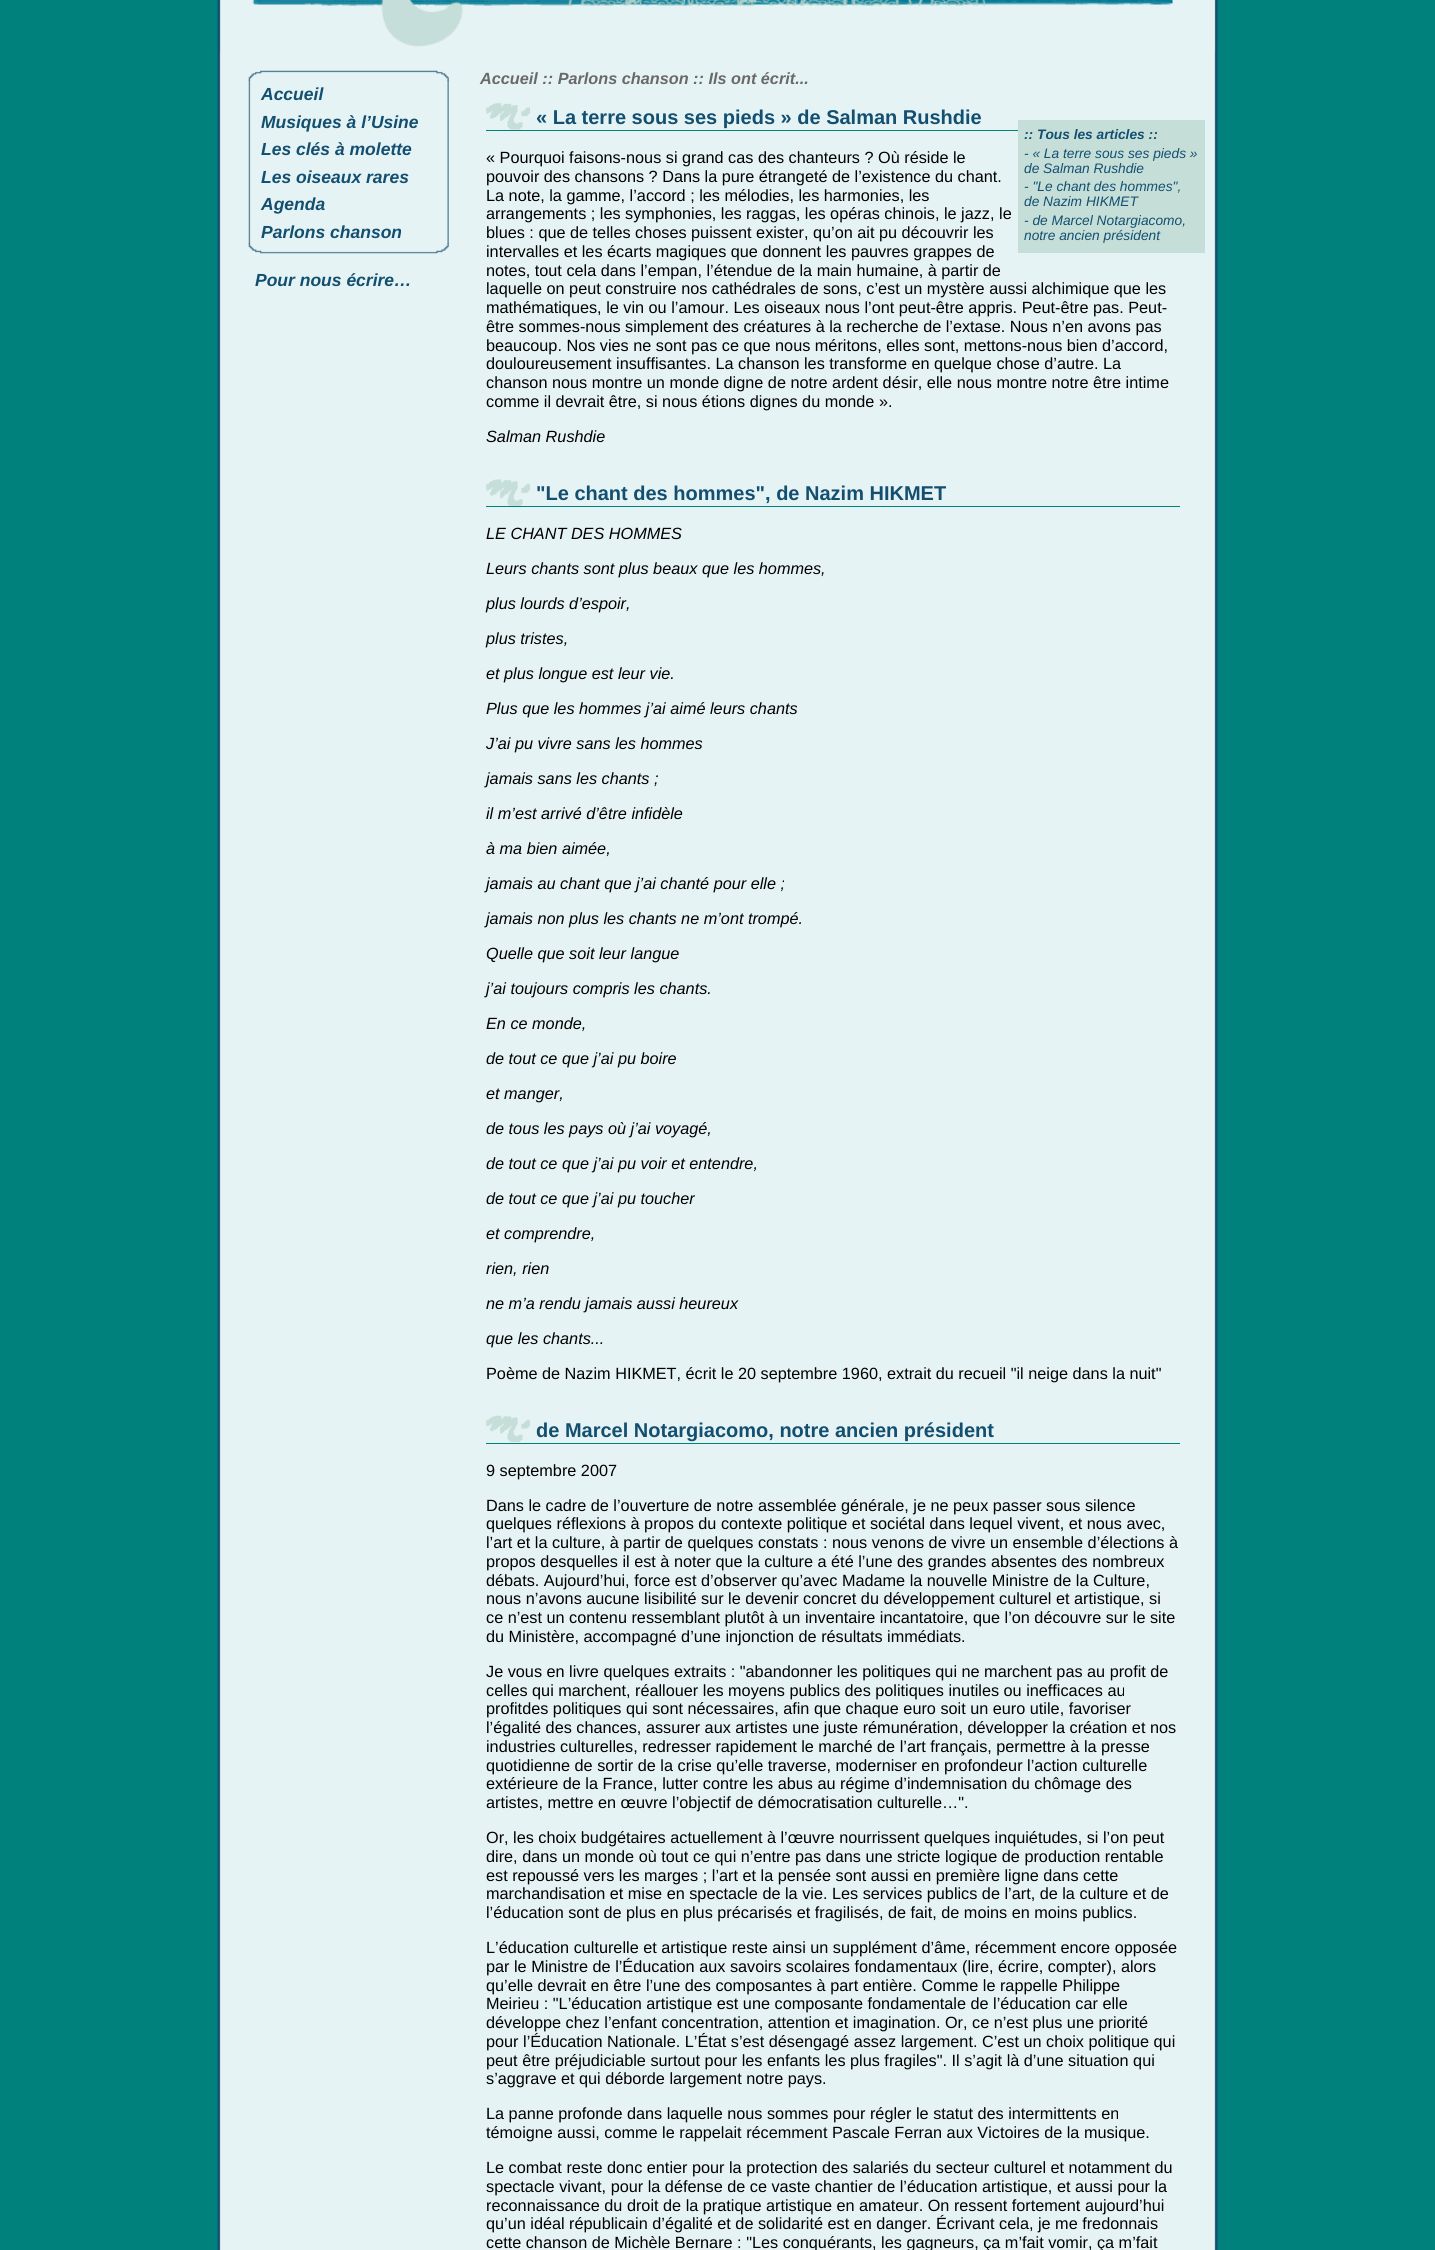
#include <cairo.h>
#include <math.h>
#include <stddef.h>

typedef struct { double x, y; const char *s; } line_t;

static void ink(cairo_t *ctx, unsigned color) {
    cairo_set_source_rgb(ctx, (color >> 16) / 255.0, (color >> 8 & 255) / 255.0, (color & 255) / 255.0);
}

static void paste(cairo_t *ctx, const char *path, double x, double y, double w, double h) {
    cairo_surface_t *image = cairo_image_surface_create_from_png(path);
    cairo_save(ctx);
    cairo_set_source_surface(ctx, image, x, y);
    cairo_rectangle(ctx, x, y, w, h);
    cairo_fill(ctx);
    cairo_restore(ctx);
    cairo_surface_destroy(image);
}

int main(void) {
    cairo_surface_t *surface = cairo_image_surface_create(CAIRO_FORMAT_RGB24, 1435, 2250);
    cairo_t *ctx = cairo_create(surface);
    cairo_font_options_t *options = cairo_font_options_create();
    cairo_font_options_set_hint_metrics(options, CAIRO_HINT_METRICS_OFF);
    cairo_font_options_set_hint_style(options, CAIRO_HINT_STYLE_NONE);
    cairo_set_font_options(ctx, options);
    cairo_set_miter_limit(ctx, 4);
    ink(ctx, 0x00817B);
    cairo_paint(ctx);
    paste(ctx, "media/1.png", 217, 0, 1001, 52);
    paste(ctx, "media/2.png", 217, 52, 1001, 2198);
    paste(ctx, "media/3.png", 248, 70, 201, 11);
    paste(ctx, "media/4.png", 248, 243, 201, 11);
    paste(ctx, "media/5.png", 248, 79, 201, 166);
    cairo_select_font_face(ctx, "Liberation Sans", CAIRO_FONT_SLANT_ITALIC, CAIRO_FONT_WEIGHT_BOLD);
    cairo_set_font_size(ctx, 17.5);
    ink(ctx, 0x124F70);
    {
        static const line_t items[] = {
            {261, 100, "Accueil"},
            {261, 128, "Musiques à l’Usine"},
            {261, 155, "Les clés à molette"},
            {261, 183, "Les oiseaux rares"},
            {261, 210, "Agenda"},
            {261, 238, "Parlons chanson"},
            {255, 286, "Pour nous écrire…"},
        };
        for (size_t i = 0; i < sizeof items / sizeof *items; i++) {
            cairo_move_to(ctx, items[i].x, items[i].y);
            cairo_show_text(ctx, items[i].s);
        }
    }
    cairo_set_font_size(ctx, 16.25);
    ink(ctx, 0x696969);
    cairo_move_to(ctx, 480, 84);
    cairo_show_text(ctx, "Accueil :: Parlons chanson :: Ils ont écrit...");
    paste(ctx, "media/6.png", 486, 103, 44, 27);
    ink(ctx, 0x00817B);
    cairo_rectangle(ctx, 486, 130, 532, 1);
    cairo_fill(ctx);
    cairo_select_font_face(ctx, "Liberation Sans", CAIRO_FONT_SLANT_NORMAL, CAIRO_FONT_WEIGHT_BOLD);
    cairo_set_font_size(ctx, 20);
    ink(ctx, 0x124F70);
    cairo_move_to(ctx, 536, 124);
    cairo_show_text(ctx, "« La terre sous ses pieds » de Salman Rushdie");
    cairo_select_font_face(ctx, "Liberation Sans", CAIRO_FONT_SLANT_NORMAL, CAIRO_FONT_WEIGHT_NORMAL);
    cairo_set_font_size(ctx, 16.25);
    ink(ctx, 0x000000);
    {
        static const line_t items[] = {
            {486, 163, "« Pourquoi faisons-nous si grand cas des chanteurs ? Où réside le"},
            {486, 182, "pouvoir des chansons ? Dans la pure étrangeté de l’existence du chant."},
            {486, 201, "La note, la gamme, l’accord ; les mélodies, les harmonies, les"},
            {486, 219, "arrangements ; les symphonies, les raggas, les opéras chinois, le jazz, le"},
            {486, 238, "blues : que de telles choses puissent exister, qu’on ait pu découvrir les"},
            {486, 257, "intervalles et les écarts magiques que donnent les pauvres grappes de"},
            {486, 276, "notes, tout cela dans l’empan, l’étendue de la main humaine, à partir de"},
            {486, 294, "laquelle on peut construire nos cathédrales de sons, c’est un mystère aussi alchimique que les"},
            {486, 313, "mathématiques, le vin ou l’amour. Les oiseaux nous l’ont peut-être appris. Peut-être pas. Peut-"},
            {486, 332, "être sommes-nous simplement des créatures à la recherche de l’extase. Nous n’en avons pas"},
            {486, 351, "beaucoup. Nos vies ne sont pas ce que nous méritons, elles sont, mettons-nous bien d’accord,"},
            {486, 369, "douloureusement insuffisantes. La chanson les transforme en quelque chose d’autre. La"},
            {486, 388, "chanson nous montre un monde digne de notre ardent désir, elle nous montre notre être intime"},
            {486, 407, "comme il devrait être, si nous étions dignes du monde »."},
        };
        for (size_t i = 0; i < sizeof items / sizeof *items; i++) {
            cairo_move_to(ctx, items[i].x, items[i].y);
            cairo_show_text(ctx, items[i].s);
        }
    }
    cairo_select_font_face(ctx, "Liberation Sans", CAIRO_FONT_SLANT_ITALIC, CAIRO_FONT_WEIGHT_NORMAL);
    cairo_move_to(ctx, 486, 442);
    cairo_show_text(ctx, "Salman Rushdie");
    ink(ctx, 0xC6DED8);
    cairo_rectangle(ctx, 1018, 120, 187, 133);
    cairo_fill(ctx);
    cairo_select_font_face(ctx, "Liberation Sans", CAIRO_FONT_SLANT_ITALIC, CAIRO_FONT_WEIGHT_BOLD);
    cairo_set_font_size(ctx, 13.75);
    ink(ctx, 0x124F70);
    cairo_move_to(ctx, 1024, 139);
    cairo_show_text(ctx, ":: Tous les articles ::");
    cairo_select_font_face(ctx, "Liberation Sans", CAIRO_FONT_SLANT_ITALIC, CAIRO_FONT_WEIGHT_NORMAL);
    {
        static const line_t items[] = {
            {1024, 158, "- « La terre sous ses pieds »"},
            {1024, 173, "de Salman Rushdie"},
            {1024, 191, "- \"Le chant des hommes\","},
            {1024, 206, "de Nazim HIKMET"},
            {1024, 225, "- de Marcel Notargiacomo,"},
            {1024, 240, "notre ancien président"},
        };
        for (size_t i = 0; i < sizeof items / sizeof *items; i++) {
            cairo_move_to(ctx, items[i].x, items[i].y);
            cairo_show_text(ctx, items[i].s);
        }
    }
    paste(ctx, "media/7.png", 486, 479, 44, 27);
    ink(ctx, 0x00817B);
    cairo_rectangle(ctx, 486, 506, 694, 1);
    cairo_fill(ctx);
    cairo_select_font_face(ctx, "Liberation Sans", CAIRO_FONT_SLANT_NORMAL, CAIRO_FONT_WEIGHT_BOLD);
    cairo_set_font_size(ctx, 20);
    ink(ctx, 0x124F70);
    cairo_move_to(ctx, 536, 500);
    cairo_show_text(ctx, "\"Le chant des hommes\", de Nazim HIKMET");
    cairo_select_font_face(ctx, "Liberation Sans", CAIRO_FONT_SLANT_ITALIC, CAIRO_FONT_WEIGHT_NORMAL);
    cairo_set_font_size(ctx, 16.25);
    ink(ctx, 0x000000);
    {
        static const line_t items[] = {
            {486, 539, "LE CHANT DES HOMMES"},
            {486, 574, "Leurs chants sont plus beaux que les hommes,"},
            {486, 609, "plus lourds d’espoir,"},
            {486, 644, "plus tristes,"},
            {486, 679, "et plus longue est leur vie."},
            {486, 714, "Plus que les hommes j’ai aimé leurs chants"},
            {486, 749, "J’ai pu vivre sans les hommes"},
            {486, 784, "jamais sans les chants ;"},
            {486, 819, "il m’est arrivé d’être infidèle"},
            {486, 854, "à ma bien aimée,"},
            {486, 889, "jamais au chant que j’ai chanté pour elle ;"},
            {486, 924, "jamais non plus les chants ne m’ont trompé."},
            {486, 959, "Quelle que soit leur langue"},
            {486, 994, "j’ai toujours compris les chants."},
            {486, 1029, "En ce monde,"},
            {486, 1064, "de tout ce que j’ai pu boire"},
            {486, 1099, "et manger,"},
            {486, 1134, "de tous les pays où j’ai voyagé,"},
            {486, 1169, "de tout ce que j’ai pu voir et entendre,"},
            {486, 1204, "de tout ce que j’ai pu toucher"},
            {486, 1239, "et comprendre,"},
            {486, 1274, "rien, rien"},
            {486, 1309, "ne m’a rendu jamais aussi heureux"},
            {486, 1344, "que les chants..."},
        };
        for (size_t i = 0; i < sizeof items / sizeof *items; i++) {
            cairo_move_to(ctx, items[i].x, items[i].y);
            cairo_show_text(ctx, items[i].s);
        }
    }
    cairo_select_font_face(ctx, "Liberation Sans", CAIRO_FONT_SLANT_NORMAL, CAIRO_FONT_WEIGHT_NORMAL);
    cairo_move_to(ctx, 486, 1379);
    cairo_show_text(ctx, "Poème de Nazim HIKMET, écrit le 20 septembre 1960, extrait du recueil \"il neige dans la nuit\"");
    paste(ctx, "media/8.png", 486, 1415, 44, 27);
    ink(ctx, 0x00817B);
    cairo_rectangle(ctx, 486, 1443, 694, 1);
    cairo_fill(ctx);
    cairo_select_font_face(ctx, "Liberation Sans", CAIRO_FONT_SLANT_NORMAL, CAIRO_FONT_WEIGHT_BOLD);
    cairo_set_font_size(ctx, 20);
    ink(ctx, 0x124F70);
    cairo_move_to(ctx, 536, 1437);
    cairo_show_text(ctx, "de Marcel Notargiacomo, notre ancien président");
    cairo_select_font_face(ctx, "Liberation Sans", CAIRO_FONT_SLANT_NORMAL, CAIRO_FONT_WEIGHT_NORMAL);
    cairo_set_font_size(ctx, 16.25);
    ink(ctx, 0x000000);
    {
        static const line_t items[] = {
            {486, 1476, "9 septembre 2007"},
            {486, 1511, "Dans le cadre de l’ouverture de notre assemblée générale, je ne peux passer sous silence"},
            {486, 1529, "quelques réflexions à propos du contexte politique et sociétal dans lequel vivent, et nous avec,"},
            {486, 1548, "l’art et la culture, à partir de quelques constats : nous venons de vivre un ensemble d’élections à"},
            {486, 1567, "propos desquelles il est à noter que la culture a été l’une des grandes absentes des nombreux"},
            {486, 1586, "débats. Aujourd’hui, force est d’observer qu’avec Madame la nouvelle Ministre de la Culture,"},
            {486, 1604, "nous n’avons aucune lisibilité sur le devenir concret du développement culturel et artistique, si"},
            {486, 1623, "ce n’est un contenu ressemblant plutôt à un inventaire incantatoire, que l’on découvre sur le site"},
            {486, 1642, "du Ministère, accompagné d’une injonction de résultats immédiats."},
            {486, 1677, "Je vous en livre quelques extraits : \"abandonner les politiques qui ne marchent pas au profit de"},
            {486, 1696, "celles qui marchent, réallouer les moyens publics des politiques inutiles ou inefficaces au"},
            {486, 1714, "profitdes politiques qui sont nécessaires, afin que chaque euro soit un euro utile, favoriser"},
            {486, 1733, "l’égalité des chances, assurer aux artistes une juste rémunération, développer la création et nos"},
            {486, 1752, "industries culturelles, redresser rapidement le marché de l’art français, permettre à la presse"},
            {486, 1771, "quotidienne de sortir de la crise qu’elle traverse, moderniser en profondeur l’action culturelle"},
            {486, 1789, "extérieure de la France, lutter contre les abus au régime d’indemnisation du chômage des"},
            {486, 1808, "artistes, mettre en œuvre l’objectif de démocratisation culturelle…\"."},
            {486, 1843, "Or, les choix budgétaires actuellement à l’œuvre nourrissent quelques inquiétudes, si l’on peut"},
            {486, 1862, "dire, dans un monde où tout ce qui n’entre pas dans une stricte logique de production rentable"},
            {486, 1881, "est repoussé vers les marges ; l’art et la pensée sont aussi en première ligne dans cette"},
            {486, 1899, "marchandisation et mise en spectacle de la vie. Les services publics de l’art, de la culture et de"},
            {486, 1918, "l’éducation sont de plus en plus précarisés et fragilisés, de fait, de moins en moins publics."},
            {486, 1953, "L’éducation culturelle et artistique reste ainsi un supplément d’âme, récemment encore opposée"},
            {486, 1972, "par le Ministre de l’Éducation aux savoirs scolaires fondamentaux (lire, écrire, compter), alors"},
            {486, 1991, "qu’elle devrait en être l’une des composantes à part entière. Comme le rappelle Philippe"},
            {486, 2009, "Meirieu : \"L’éducation artistique est une composante fondamentale de l’éducation car elle"},
            {486, 2028, "développe chez l’enfant concentration, attention et imagination. Or, ce n’est plus une priorité"},
            {486, 2047, "pour l’Éducation Nationale. L’État s’est désengagé assez largement. C’est un choix politique qui"},
            {486, 2066, "peut être préjudiciable surtout pour les enfants les plus fragiles\". Il s’agit là d’une situation qui"},
            {486, 2084, "s’aggrave et qui déborde largement notre pays."},
            {486, 2119, "La panne profonde dans laquelle nous sommes pour régler le statut des intermittents en"},
            {486, 2138, "témoigne aussi, comme le rappelait récemment Pascale Ferran aux Victoires de la musique."},
            {486, 2173, "Le combat reste donc entier pour la protection des salariés du secteur culturel et notamment du"},
            {486, 2192, "spectacle vivant, pour la défense de ce vaste chantier de l’éducation artistique, et aussi pour la"},
            {486, 2211, "reconnaissance du droit de la pratique artistique en amateur. On ressent fortement aujourd’hui"},
            {486, 2229, "qu’un idéal républicain d’égalité et de solidarité est en danger. Écrivant cela, je me fredonnais"},
            {486, 2248, "cette chanson de Michèle Bernare : \"Les conquérants, les gagneurs, ça m’fait vomir, ça m’fait"},
        };
        for (size_t i = 0; i < sizeof items / sizeof *items; i++) {
            cairo_move_to(ctx, items[i].x, items[i].y);
            cairo_show_text(ctx, items[i].s);
        }
    }
    cairo_surface_write_to_png(surface, "image.png");
    cairo_font_options_destroy(options);
    cairo_destroy(ctx);
    cairo_surface_destroy(surface);
    return 0;
}
